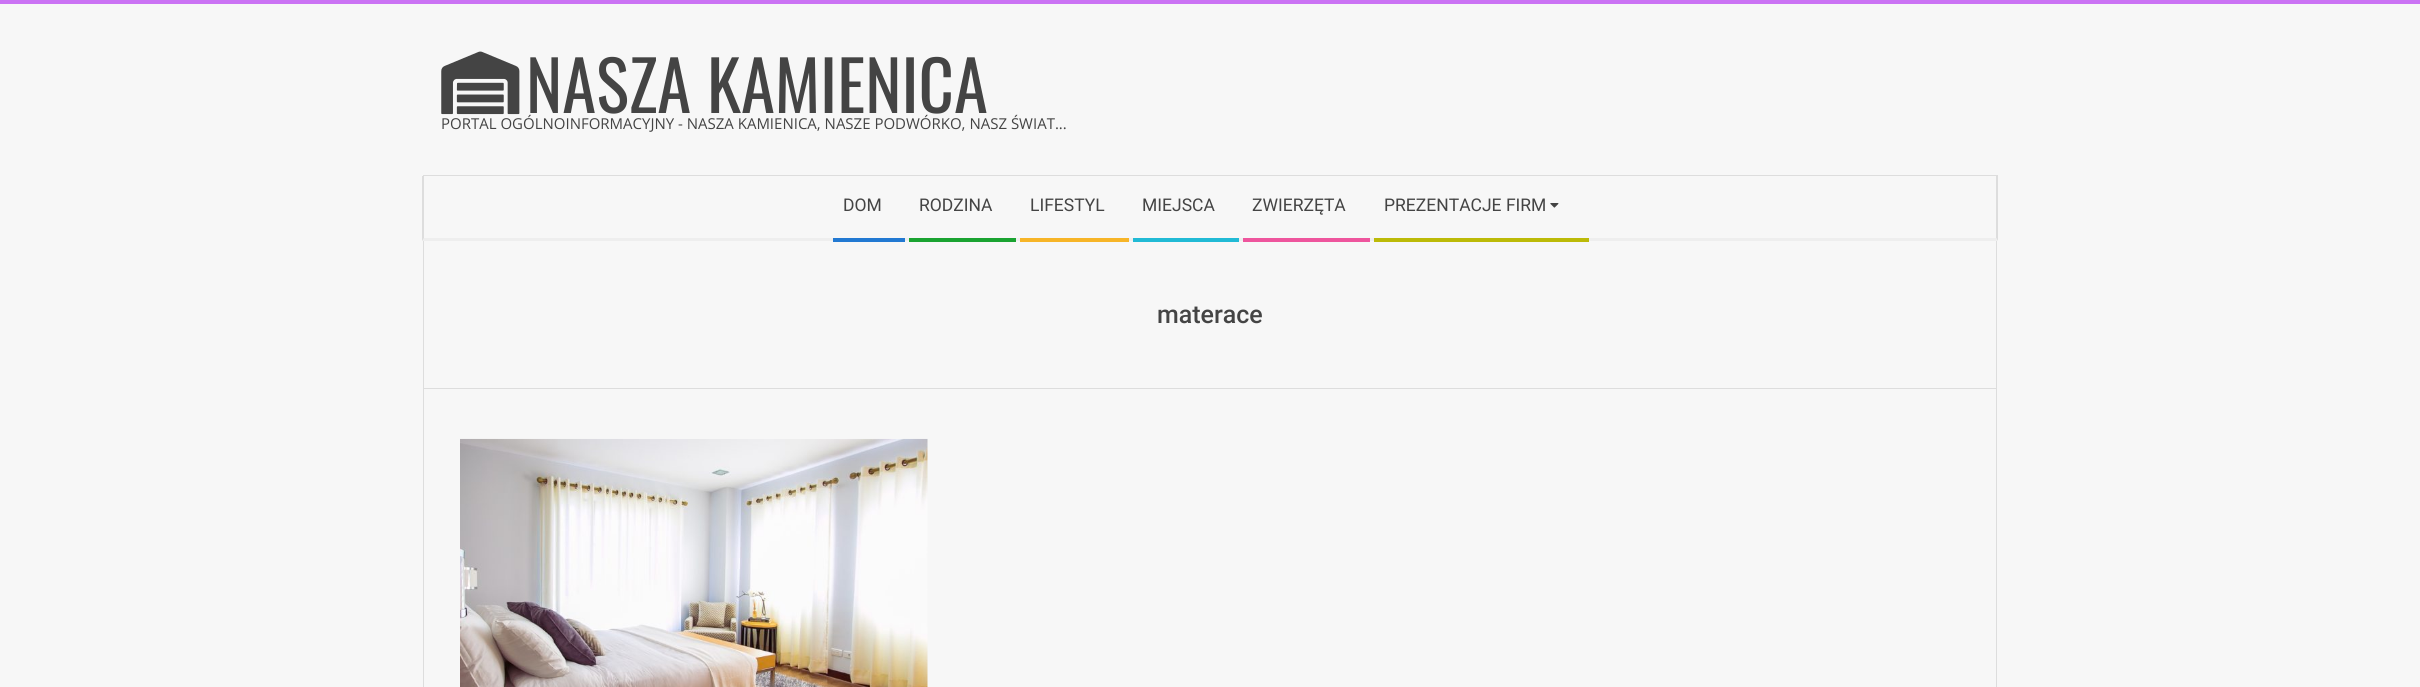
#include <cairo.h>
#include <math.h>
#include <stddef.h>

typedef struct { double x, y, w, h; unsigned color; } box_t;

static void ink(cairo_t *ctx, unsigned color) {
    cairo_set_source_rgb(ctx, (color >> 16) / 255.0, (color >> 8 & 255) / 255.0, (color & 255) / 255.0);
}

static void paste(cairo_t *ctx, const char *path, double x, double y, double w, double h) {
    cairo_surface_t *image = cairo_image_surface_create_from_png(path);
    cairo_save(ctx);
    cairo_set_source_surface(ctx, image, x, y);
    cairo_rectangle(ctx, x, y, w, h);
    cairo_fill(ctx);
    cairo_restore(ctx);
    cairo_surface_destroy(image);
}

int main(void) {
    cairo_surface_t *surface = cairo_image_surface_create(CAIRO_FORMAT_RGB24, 2420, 687);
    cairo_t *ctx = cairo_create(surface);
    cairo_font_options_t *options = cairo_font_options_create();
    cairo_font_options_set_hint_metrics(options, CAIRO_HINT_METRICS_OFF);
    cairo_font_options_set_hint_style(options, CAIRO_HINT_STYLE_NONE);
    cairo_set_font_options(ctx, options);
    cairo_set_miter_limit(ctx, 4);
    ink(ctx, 0xF7F7F7);
    cairo_paint(ctx);
    ink(ctx, 0xCB73F4);
    cairo_rectangle(ctx, 0, 0, 2420, 4);
    cairo_fill(ctx);
    ink(ctx, 0xDDDDDD);
    cairo_rectangle(ctx, 423, 175, 1575, 1);
    cairo_fill(ctx);
    paste(ctx, "media/1.png", 441, 51, 79, 64);
    cairo_select_font_face(ctx, "Oswald", CAIRO_FONT_SLANT_NORMAL, CAIRO_FONT_WEIGHT_NORMAL);
    cairo_set_font_size(ctx, 68.75);
    ink(ctx, 0x444444);
    cairo_move_to(ctx, 526, 113);
    cairo_show_text(ctx, "NASZA KAMIENICA");
    cairo_select_font_face(ctx, "Open Sans", CAIRO_FONT_SLANT_NORMAL, CAIRO_FONT_WEIGHT_NORMAL);
    cairo_set_font_size(ctx, 15);
    cairo_move_to(ctx, 441, 129);
    cairo_show_text(ctx, "PORTAL OGÓLNOINFORMACYJNY - NASZA KAMIENICA, NASZE PODWÓRKO, NASZ ŚWIAT...");
    ink(ctx, 0xDDDDDD);
    cairo_new_path(ctx);
    cairo_move_to(ctx, 1998, 176);
    cairo_line_to(ctx, 1998, 241);
    cairo_line_to(ctx, 1996, 238);
    cairo_line_to(ctx, 1996, 176);
    cairo_close_path(ctx);
    cairo_fill(ctx);
    ink(ctx, 0xEEEEEE);
    cairo_new_path(ctx);
    cairo_move_to(ctx, 1998, 241);
    cairo_line_to(ctx, 422, 241);
    cairo_line_to(ctx, 424, 238);
    cairo_line_to(ctx, 1996, 238);
    cairo_close_path(ctx);
    cairo_fill(ctx);
    ink(ctx, 0xDDDDDD);
    cairo_new_path(ctx);
    cairo_move_to(ctx, 422, 241);
    cairo_line_to(ctx, 422, 176);
    cairo_line_to(ctx, 424, 176);
    cairo_line_to(ctx, 424, 238);
    cairo_close_path(ctx);
    cairo_fill(ctx);
    cairo_select_font_face(ctx, "Roboto", CAIRO_FONT_SLANT_NORMAL, CAIRO_FONT_WEIGHT_NORMAL);
    cairo_set_font_size(ctx, 17.5);
    ink(ctx, 0x444444);
    cairo_move_to(ctx, 843, 211);
    cairo_show_text(ctx, "DOM");
    ink(ctx, 0x2279D2);
    cairo_rectangle(ctx, 833, 238, 72, 4);
    cairo_fill(ctx);
    ink(ctx, 0x444444);
    cairo_move_to(ctx, 919, 211);
    cairo_show_text(ctx, "RODZINA");
    ink(ctx, 0x1AA331);
    cairo_rectangle(ctx, 909, 238, 107, 4);
    cairo_fill(ctx);
    ink(ctx, 0x444444);
    cairo_move_to(ctx, 1030, 211);
    cairo_show_text(ctx, "LIFESTYL");
    ink(ctx, 0xF7B528);
    cairo_rectangle(ctx, 1020, 238, 109, 4);
    cairo_fill(ctx);
    ink(ctx, 0x444444);
    cairo_move_to(ctx, 1142, 211);
    cairo_show_text(ctx, "MIEJSCA");
    ink(ctx, 0x21BAD5);
    cairo_rectangle(ctx, 1133, 238, 106, 4);
    cairo_fill(ctx);
    ink(ctx, 0x444444);
    cairo_move_to(ctx, 1252, 211);
    cairo_show_text(ctx, "ZWIERZĘTA");
    ink(ctx, 0xEE559D);
    cairo_rectangle(ctx, 1243, 238, 127, 4);
    cairo_fill(ctx);
    ink(ctx, 0x444444);
    cairo_move_to(ctx, 1384, 211);
    cairo_show_text(ctx, "PREZENTACJE FIRM");
    paste(ctx, "media/2.png", 1550, 203, 9, 5);
    {
        static const box_t items[] = {
            {1374, 238, 215, 4, 0xBCBA08},
            {1996, 241, 1, 446, 0xDDDDDD},
            {423, 241, 1, 446, 0xDDDDDD},
            {424, 388, 1572, 1, 0xDDDDDD},
        };
        for (size_t i = 0; i < sizeof items / sizeof *items; i++) {
            ink(ctx, items[i].color);
            cairo_rectangle(ctx, items[i].x, items[i].y, items[i].w, items[i].h);
            cairo_fill(ctx);
        }
    }
    cairo_select_font_face(ctx, "Roboto Medium", CAIRO_FONT_SLANT_NORMAL, CAIRO_FONT_WEIGHT_NORMAL);
    cairo_set_font_size(ctx, 25);
    ink(ctx, 0x444444);
    cairo_move_to(ctx, 1157, 323);
    cairo_show_text(ctx, "materace");
    paste(ctx, "media/3.png", 460, 438, 468, 249);
    cairo_surface_write_to_png(surface, "image.png");
    cairo_font_options_destroy(options);
    cairo_destroy(ctx);
    cairo_surface_destroy(surface);
    return 0;
}
